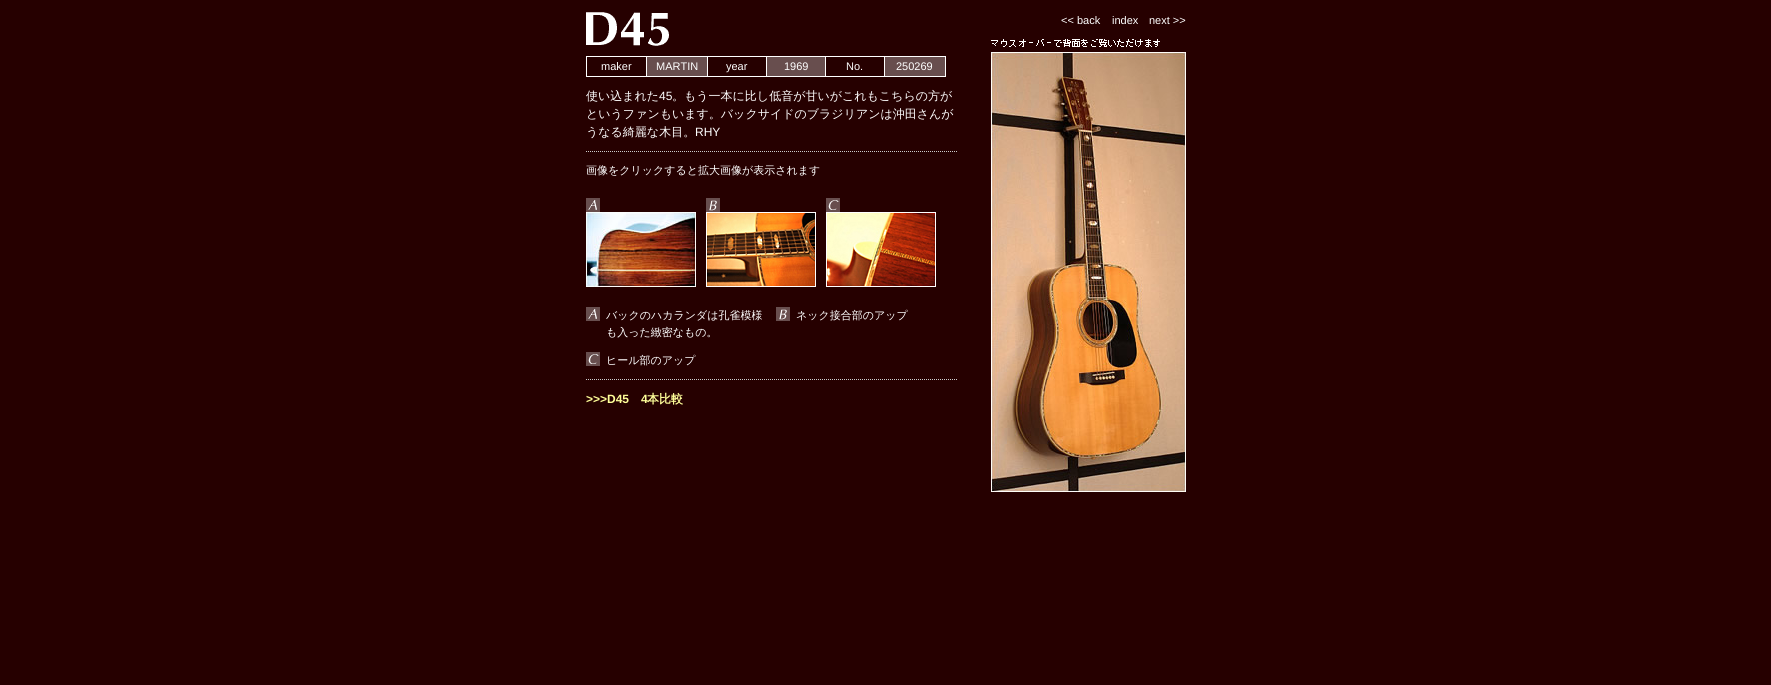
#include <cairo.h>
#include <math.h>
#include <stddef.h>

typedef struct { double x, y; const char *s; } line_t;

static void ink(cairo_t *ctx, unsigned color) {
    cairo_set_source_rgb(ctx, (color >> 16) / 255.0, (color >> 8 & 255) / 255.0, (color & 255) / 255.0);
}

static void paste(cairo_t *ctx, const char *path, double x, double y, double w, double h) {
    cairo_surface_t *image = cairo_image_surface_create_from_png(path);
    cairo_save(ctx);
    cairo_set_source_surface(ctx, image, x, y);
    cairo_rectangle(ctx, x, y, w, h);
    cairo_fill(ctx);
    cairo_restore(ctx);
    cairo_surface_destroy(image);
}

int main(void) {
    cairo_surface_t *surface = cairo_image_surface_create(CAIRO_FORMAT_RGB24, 1771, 685);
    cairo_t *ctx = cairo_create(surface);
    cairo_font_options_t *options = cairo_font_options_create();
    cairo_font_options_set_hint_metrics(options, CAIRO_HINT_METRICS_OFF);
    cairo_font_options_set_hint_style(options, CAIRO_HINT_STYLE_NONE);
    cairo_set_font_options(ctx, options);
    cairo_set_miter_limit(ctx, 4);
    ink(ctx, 0x260000);
    cairo_paint(ctx);
    cairo_select_font_face(ctx, "Liberation Sans", CAIRO_FONT_SLANT_NORMAL, CAIRO_FONT_WEIGHT_NORMAL);
    cairo_set_font_size(ctx, 11);
    ink(ctx, 0xFFFFFF);
    {
        static const line_t items[] = {
            {1061, 24, "<< back"},
            {1112, 24, "index"},
            {1149, 24, "next >>"},
        };
        for (size_t i = 0; i < sizeof items / sizeof *items; i++) {
            cairo_move_to(ctx, items[i].x, items[i].y);
            cairo_show_text(ctx, items[i].s);
        }
    }
    paste(ctx, "media/1.png", 991, 39, 169, 8);
    paste(ctx, "media/2.png", 991, 52, 195, 440);
    paste(ctx, "media/3.png", 586, 12, 83, 34);
    cairo_rectangle(ctx, 586, 56, 360, 21);
    cairo_fill(ctx);
    ink(ctx, 0x260000);
    cairo_rectangle(ctx, 587, 57, 59, 19);
    cairo_fill(ctx);
    ink(ctx, 0xFFFFFF);
    cairo_move_to(ctx, 601, 70);
    cairo_show_text(ctx, "maker");
    ink(ctx, 0x684E4E);
    cairo_rectangle(ctx, 647, 57, 60, 19);
    cairo_fill(ctx);
    ink(ctx, 0xFFFFFF);
    cairo_move_to(ctx, 656, 70);
    cairo_show_text(ctx, "MARTIN");
    ink(ctx, 0x260000);
    cairo_rectangle(ctx, 708, 57, 58, 19);
    cairo_fill(ctx);
    ink(ctx, 0xFFFFFF);
    cairo_move_to(ctx, 726, 70);
    cairo_show_text(ctx, "year");
    ink(ctx, 0x684E4E);
    cairo_rectangle(ctx, 767, 57, 58, 19);
    cairo_fill(ctx);
    ink(ctx, 0xFFFFFF);
    cairo_move_to(ctx, 784, 70);
    cairo_show_text(ctx, "1969");
    ink(ctx, 0x260000);
    cairo_rectangle(ctx, 826, 57, 58, 19);
    cairo_fill(ctx);
    ink(ctx, 0xFFFFFF);
    cairo_move_to(ctx, 846, 70);
    cairo_show_text(ctx, "No.");
    ink(ctx, 0x684E4E);
    cairo_rectangle(ctx, 885, 57, 60, 19);
    cairo_fill(ctx);
    ink(ctx, 0xFFFFFF);
    cairo_move_to(ctx, 896, 70);
    cairo_show_text(ctx, "250269");
    cairo_select_font_face(ctx, "WenQuanYi Zen Hei Medium", CAIRO_FONT_SLANT_NORMAL, CAIRO_FONT_WEIGHT_NORMAL);
    cairo_set_font_size(ctx, 12);
    cairo_move_to(ctx, 586, 100);
    cairo_show_text(ctx, "使い込まれた");
    cairo_select_font_face(ctx, "Liberation Sans", CAIRO_FONT_SLANT_NORMAL, CAIRO_FONT_WEIGHT_NORMAL);
    cairo_move_to(ctx, 659, 100);
    cairo_show_text(ctx, "45");
    cairo_select_font_face(ctx, "WenQuanYi Zen Hei Medium", CAIRO_FONT_SLANT_NORMAL, CAIRO_FONT_WEIGHT_NORMAL);
    {
        static const line_t items[] = {
            {672, 100, "。もう一本に比し低音が甘いがこれもこちらの方が"},
            {586, 118, "というファンもいます。バックサイドのブラジリアンは沖田さんが"},
            {586, 136, "うなる綺麗な木目。"},
        };
        for (size_t i = 0; i < sizeof items / sizeof *items; i++) {
            cairo_move_to(ctx, items[i].x, items[i].y);
            cairo_show_text(ctx, items[i].s);
        }
    }
    cairo_select_font_face(ctx, "Liberation Sans", CAIRO_FONT_SLANT_NORMAL, CAIRO_FONT_WEIGHT_NORMAL);
    cairo_move_to(ctx, 695, 136);
    cairo_show_text(ctx, "RHY");
    paste(ctx, "media/4.png", 586, 151, 371, 1);
    cairo_select_font_face(ctx, "WenQuanYi Zen Hei Medium", CAIRO_FONT_SLANT_NORMAL, CAIRO_FONT_WEIGHT_NORMAL);
    cairo_set_font_size(ctx, 11);
    cairo_move_to(ctx, 586, 174);
    cairo_show_text(ctx, "画像をクリックすると拡大画像が表示されます");
    paste(ctx, "media/5.png", 586, 198, 14, 14);
    paste(ctx, "media/6.png", 706, 198, 14, 14);
    paste(ctx, "media/7.png", 826, 198, 14, 14);
    paste(ctx, "media/8.png", 586, 212, 110, 75);
    paste(ctx, "media/9.png", 706, 212, 110, 75);
    paste(ctx, "media/10.png", 826, 212, 110, 75);
    paste(ctx, "media/5.png", 586, 307, 14, 14);
    cairo_move_to(ctx, 606, 319);
    cairo_show_text(ctx, "バックのハカランダは孔雀模様");
    cairo_move_to(ctx, 606, 336);
    cairo_show_text(ctx, "も入った緻密なもの。");
    paste(ctx, "media/6.png", 776, 307, 14, 14);
    cairo_move_to(ctx, 796, 319);
    cairo_show_text(ctx, "ネック接合部のアップ");
    paste(ctx, "media/7.png", 586, 352, 14, 14);
    cairo_move_to(ctx, 606, 364);
    cairo_show_text(ctx, "ヒール部のアップ");
    paste(ctx, "media/4.png", 586, 379, 371, 1);
    cairo_select_font_face(ctx, "Liberation Sans", CAIRO_FONT_SLANT_NORMAL, CAIRO_FONT_WEIGHT_BOLD);
    cairo_set_font_size(ctx, 12);
    ink(ctx, 0xFFFF99);
    cairo_move_to(ctx, 586, 403);
    cairo_show_text(ctx, ">>>D45");
    cairo_move_to(ctx, 641, 403);
    cairo_show_text(ctx, "4");
    cairo_select_font_face(ctx, "WenQuanYi Zen Hei", CAIRO_FONT_SLANT_NORMAL, CAIRO_FONT_WEIGHT_BOLD);
    cairo_move_to(ctx, 647, 403);
    cairo_show_text(ctx, "本比較");
    cairo_surface_write_to_png(surface, "image.png");
    cairo_font_options_destroy(options);
    cairo_destroy(ctx);
    cairo_surface_destroy(surface);
    return 0;
}
